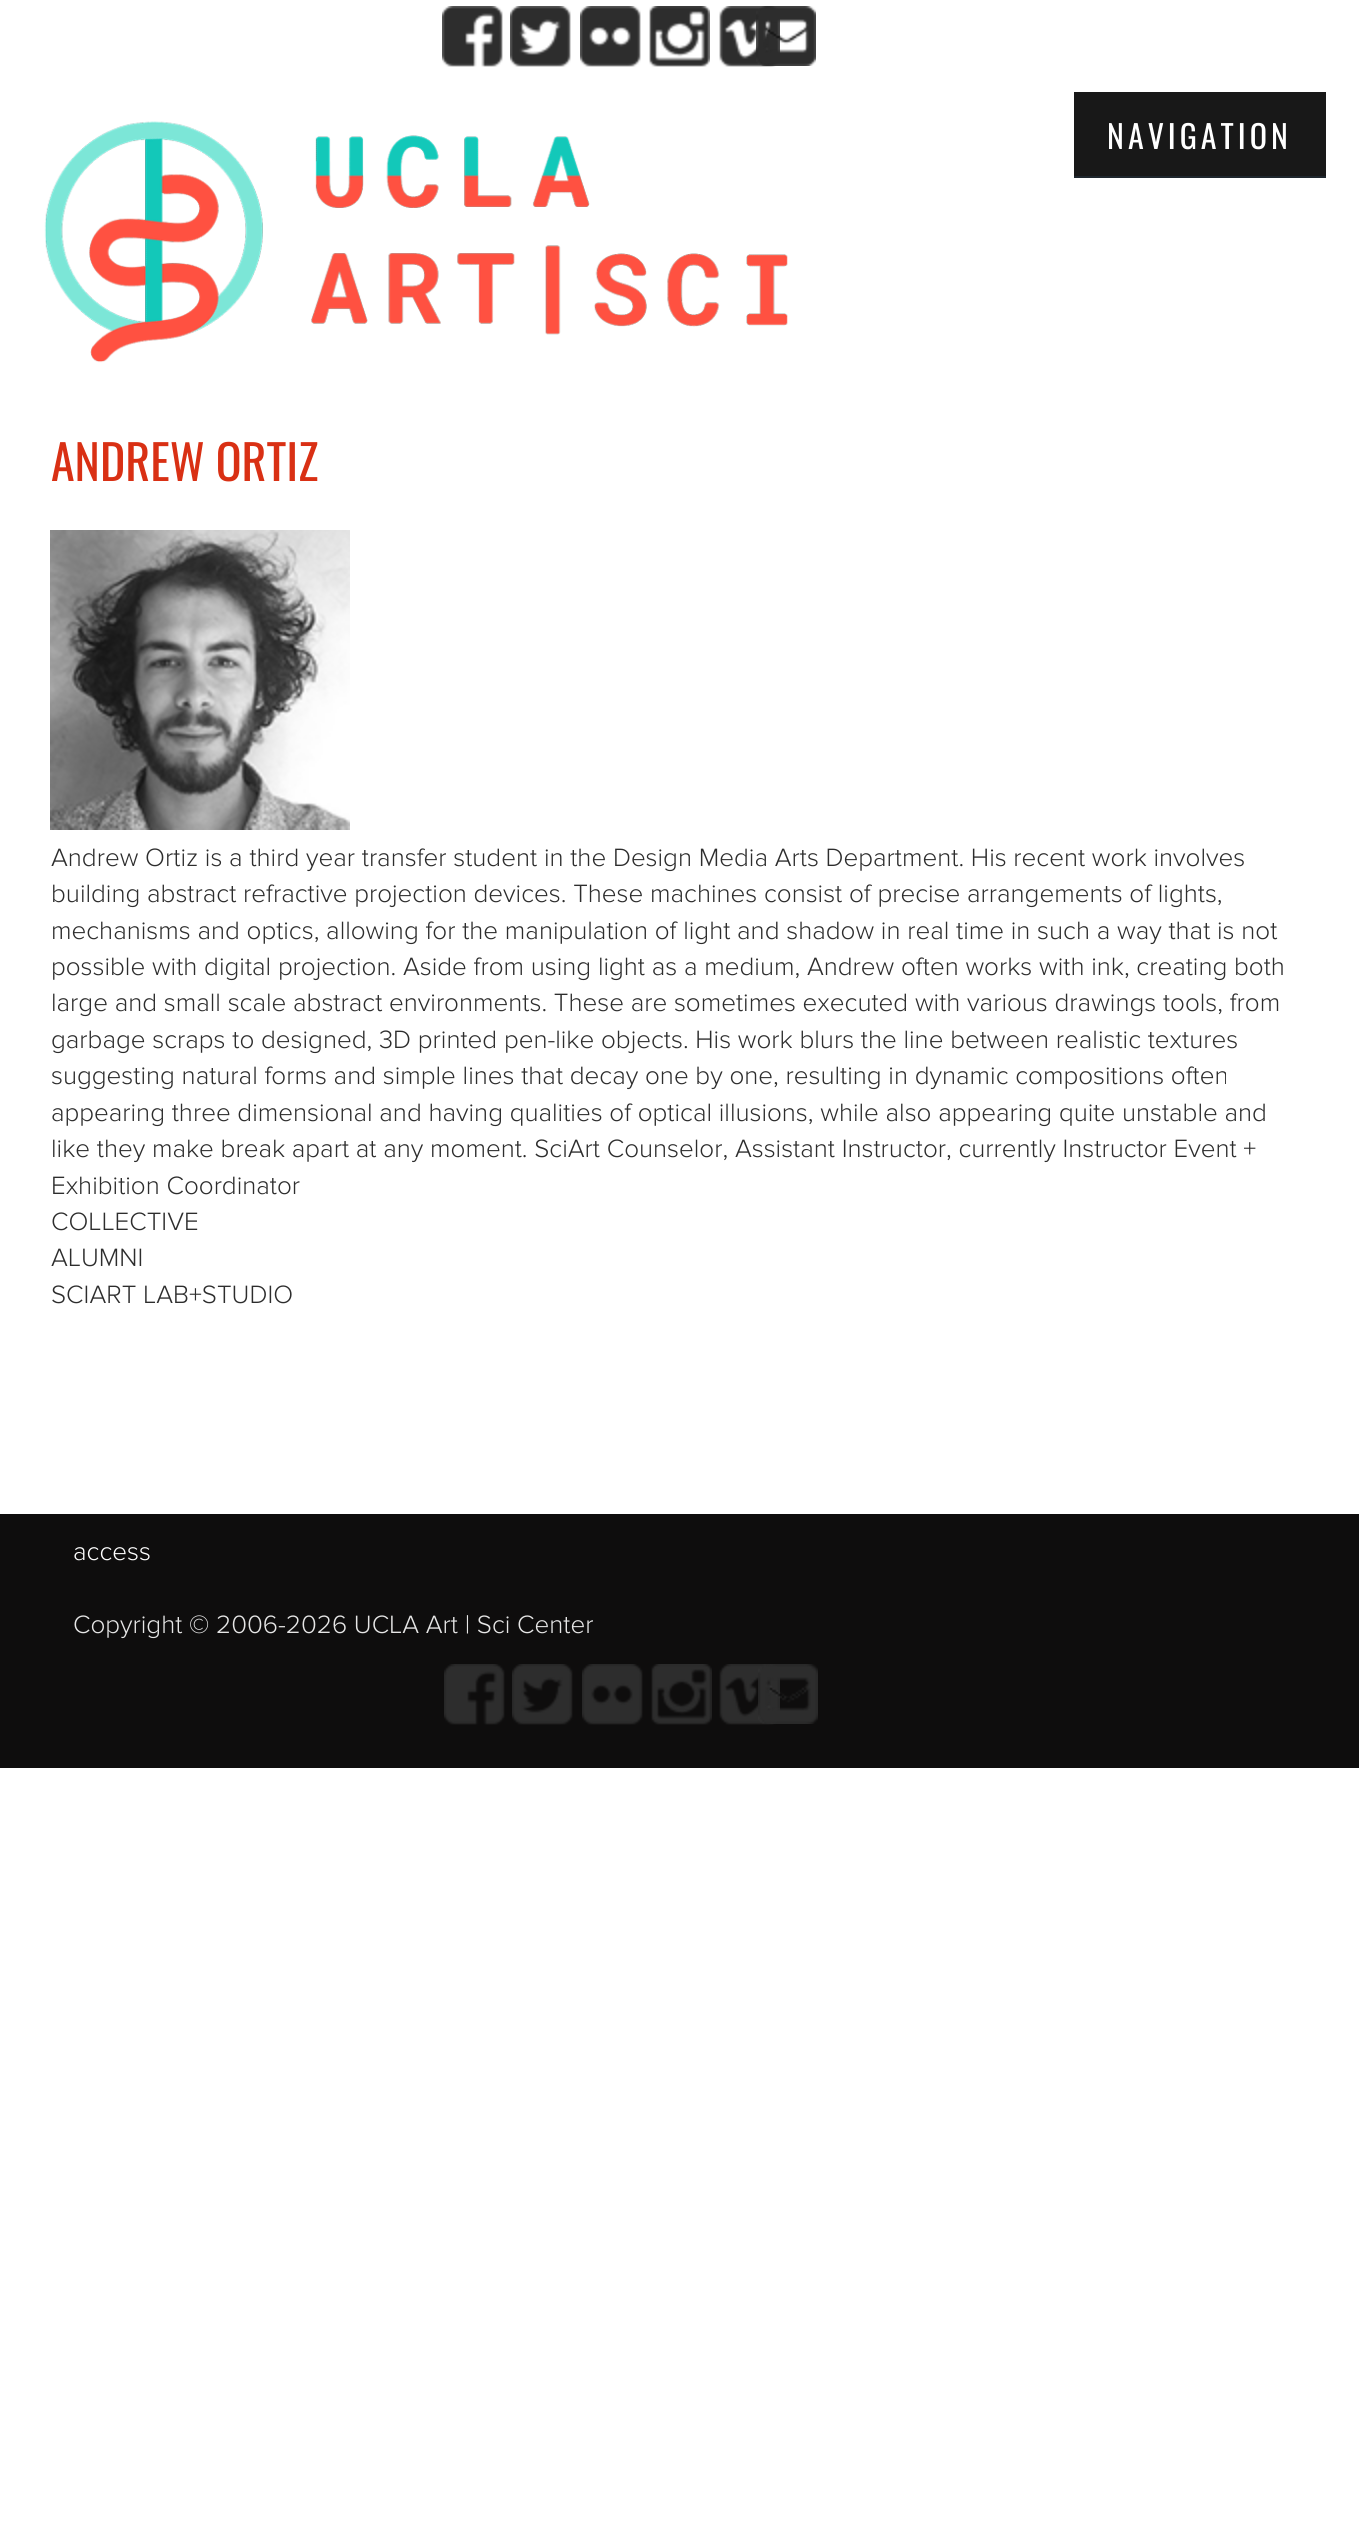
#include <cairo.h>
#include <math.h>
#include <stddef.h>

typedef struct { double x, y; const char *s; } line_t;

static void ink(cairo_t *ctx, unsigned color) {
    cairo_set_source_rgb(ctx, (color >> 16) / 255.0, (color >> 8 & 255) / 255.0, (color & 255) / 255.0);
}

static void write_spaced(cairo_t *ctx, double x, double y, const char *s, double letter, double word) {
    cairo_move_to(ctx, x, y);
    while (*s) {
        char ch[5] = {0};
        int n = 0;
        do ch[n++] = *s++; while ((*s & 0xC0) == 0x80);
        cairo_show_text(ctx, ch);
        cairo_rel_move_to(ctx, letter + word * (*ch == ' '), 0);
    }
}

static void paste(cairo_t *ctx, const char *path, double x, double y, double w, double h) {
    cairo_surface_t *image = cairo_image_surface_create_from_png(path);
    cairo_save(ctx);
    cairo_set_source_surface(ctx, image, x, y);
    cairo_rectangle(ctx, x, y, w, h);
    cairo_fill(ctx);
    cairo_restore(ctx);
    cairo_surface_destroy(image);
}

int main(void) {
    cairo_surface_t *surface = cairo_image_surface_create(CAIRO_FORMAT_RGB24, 1359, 2523);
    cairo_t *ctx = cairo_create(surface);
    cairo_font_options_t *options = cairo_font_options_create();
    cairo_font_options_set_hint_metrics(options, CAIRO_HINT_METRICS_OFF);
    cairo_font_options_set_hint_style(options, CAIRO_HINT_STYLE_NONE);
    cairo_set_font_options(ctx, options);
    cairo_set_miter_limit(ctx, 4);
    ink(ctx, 0xFFFFFF);
    cairo_paint(ctx);
    paste(ctx, "media/1.png", 442, 6, 61, 61);
    paste(ctx, "media/2.png", 510, 6, 61, 61);
    paste(ctx, "media/3.png", 580, 6, 61, 61);
    paste(ctx, "media/4.png", 649, 6, 61, 61);
    paste(ctx, "media/5.png", 719, 6, 61, 61);
    paste(ctx, "media/6.png", 756, 6, 60, 60);
    paste(ctx, "media/7.png", 44, 121, 744, 242);
    ink(ctx, 0x181818);
    cairo_rectangle(ctx, 1074, 92, 252, 84);
    cairo_fill(ctx);
    ink(ctx, 0x1E262D);
    cairo_rectangle(ctx, 1074, 176, 252, 2);
    cairo_fill(ctx);
    cairo_select_font_face(ctx, "Oswald", CAIRO_FONT_SLANT_NORMAL, CAIRO_FONT_WEIGHT_NORMAL);
    cairo_set_font_size(ctx, 32);
    ink(ctx, 0xFFFFFF);
    write_spaced(ctx, 1107, 149, "NAVIGATION", 4, 0);
    cairo_set_font_size(ctx, 48);
    ink(ctx, 0xD93014);
    cairo_move_to(ctx, 51, 481);
    cairo_show_text(ctx, "ANDREW ORTIZ");
    paste(ctx, "media/8.png", 50, 530, 300, 300);
    cairo_select_font_face(ctx, "Proxima Nova Light", CAIRO_FONT_SLANT_NORMAL, CAIRO_FONT_WEIGHT_NORMAL);
    cairo_set_font_size(ctx, 26);
    ink(ctx, 0x2D2D2D);
    {
        static const line_t items[] = {
            {51, 866, "Andrew Ortiz is a third year transfer student in the Design Media Arts Department. His recent work involves"},
            {51, 902, "building abstract refractive projection devices. These machines consist of precise arrangements of lights,"},
            {51, 939, "mechanisms and optics, allowing for the manipulation of light and shadow in real time in such a way that is not"},
            {51, 975, "possible with digital projection. Aside from using light as a medium, Andrew often works with ink, creating both"},
            {51, 1011, "large and small scale abstract environments. These are sometimes executed with various drawings tools, from"},
            {51, 1048, "garbage scraps to designed, 3D printed pen-like objects. His work blurs the line between realistic textures"},
            {51, 1084, "suggesting natural forms and simple lines that decay one by one, resulting in dynamic compositions often"},
            {51, 1121, "appearing three dimensional and having qualities of optical illusions, while also appearing quite unstable and"},
            {51, 1157, "like they make break apart at any moment. SciArt Counselor, Assistant Instructor, currently Instructor Event +"},
            {51, 1194, "Exhibition Coordinator"},
            {51, 1230, "COLLECTIVE"},
            {51, 1266, "ALUMNI"},
            {51, 1303, "SCIART LAB+STUDIO"},
        };
        for (size_t i = 0; i < sizeof items / sizeof *items; i++) {
            cairo_move_to(ctx, items[i].x, items[i].y);
            cairo_show_text(ctx, items[i].s);
        }
    }
    ink(ctx, 0x0E0D0D);
    cairo_rectangle(ctx, 0, 1514, 1359, 254);
    cairo_fill(ctx);
    ink(ctx, 0xFFFFFF);
    cairo_move_to(ctx, 73, 1560);
    cairo_show_text(ctx, "access");
    ink(ctx, 0xE6E6E6);
    cairo_move_to(ctx, 73, 1633);
    cairo_show_text(ctx, "Copyright © 2006-2026 UCLA Art | Sci Center");
    paste(ctx, "media/9.png", 444, 1664, 61, 61);
    paste(ctx, "media/10.png", 512, 1664, 61, 61);
    paste(ctx, "media/11.png", 582, 1664, 61, 61);
    paste(ctx, "media/12.png", 651, 1664, 61, 61);
    paste(ctx, "media/13.png", 719, 1664, 61, 61);
    paste(ctx, "media/14.png", 758, 1664, 60, 60);
    cairo_surface_write_to_png(surface, "image.png");
    cairo_font_options_destroy(options);
    cairo_destroy(ctx);
    cairo_surface_destroy(surface);
    return 0;
}
